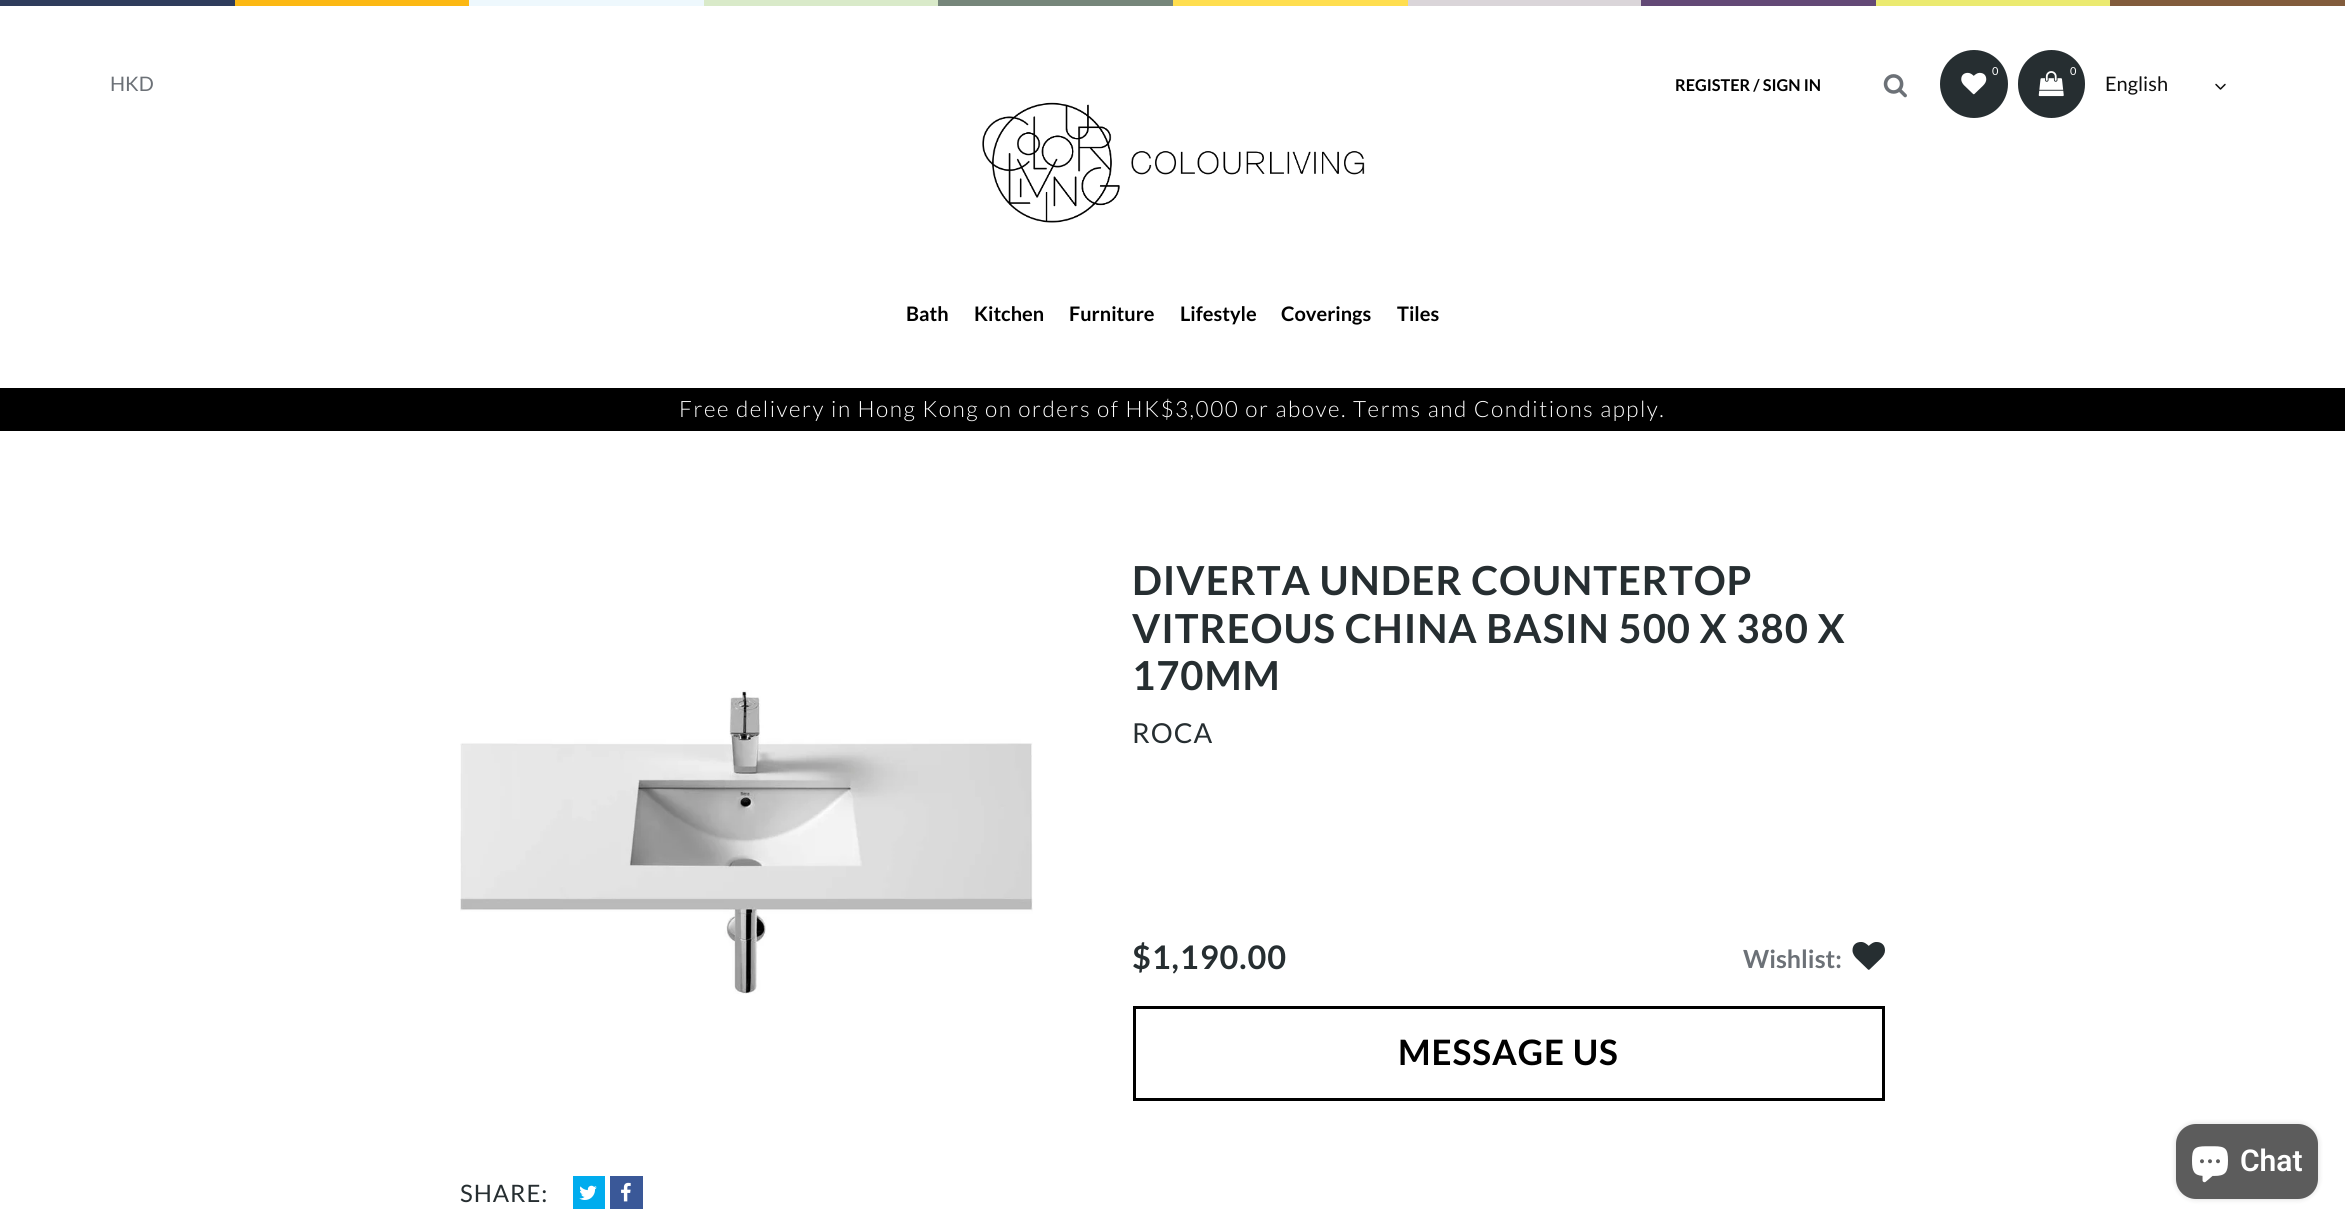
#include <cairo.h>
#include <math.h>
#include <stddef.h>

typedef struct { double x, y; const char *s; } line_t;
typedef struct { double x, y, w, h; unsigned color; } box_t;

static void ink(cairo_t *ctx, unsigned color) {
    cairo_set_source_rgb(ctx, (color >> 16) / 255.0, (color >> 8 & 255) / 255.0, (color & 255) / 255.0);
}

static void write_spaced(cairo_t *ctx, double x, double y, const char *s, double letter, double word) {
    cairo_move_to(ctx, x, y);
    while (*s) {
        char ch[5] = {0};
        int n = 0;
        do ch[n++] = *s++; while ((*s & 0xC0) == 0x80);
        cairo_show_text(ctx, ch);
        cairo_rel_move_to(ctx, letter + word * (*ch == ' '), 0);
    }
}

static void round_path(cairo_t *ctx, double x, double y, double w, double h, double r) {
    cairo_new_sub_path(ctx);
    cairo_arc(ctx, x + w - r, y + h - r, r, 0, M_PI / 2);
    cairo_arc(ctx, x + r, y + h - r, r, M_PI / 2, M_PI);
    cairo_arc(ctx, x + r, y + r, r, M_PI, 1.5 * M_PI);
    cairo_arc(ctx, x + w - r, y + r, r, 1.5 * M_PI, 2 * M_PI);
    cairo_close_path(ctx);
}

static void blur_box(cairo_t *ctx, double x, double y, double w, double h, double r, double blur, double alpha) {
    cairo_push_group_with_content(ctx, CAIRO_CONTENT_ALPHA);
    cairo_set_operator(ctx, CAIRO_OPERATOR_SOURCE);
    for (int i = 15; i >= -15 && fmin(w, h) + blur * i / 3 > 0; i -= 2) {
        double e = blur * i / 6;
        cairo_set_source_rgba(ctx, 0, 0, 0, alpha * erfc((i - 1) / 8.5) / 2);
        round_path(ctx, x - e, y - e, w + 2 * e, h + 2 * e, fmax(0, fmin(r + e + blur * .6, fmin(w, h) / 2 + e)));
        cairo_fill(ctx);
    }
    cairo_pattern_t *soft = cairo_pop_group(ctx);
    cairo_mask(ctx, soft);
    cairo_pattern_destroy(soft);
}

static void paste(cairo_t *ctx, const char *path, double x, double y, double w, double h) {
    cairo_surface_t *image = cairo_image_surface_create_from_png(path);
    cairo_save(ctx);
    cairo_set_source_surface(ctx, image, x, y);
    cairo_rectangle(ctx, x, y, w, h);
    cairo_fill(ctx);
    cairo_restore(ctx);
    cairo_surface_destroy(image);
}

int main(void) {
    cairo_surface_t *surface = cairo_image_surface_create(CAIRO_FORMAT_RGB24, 2345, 1224);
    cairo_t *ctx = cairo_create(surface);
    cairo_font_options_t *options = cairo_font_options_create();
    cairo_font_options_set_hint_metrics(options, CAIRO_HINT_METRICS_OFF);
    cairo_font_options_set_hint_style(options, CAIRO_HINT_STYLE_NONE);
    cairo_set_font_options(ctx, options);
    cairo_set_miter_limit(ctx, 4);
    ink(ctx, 0xFFFFFF);
    cairo_paint(ctx);
    {
        static const box_t items[] = {
            {0, 0, 235, 6, 0x2F3C5C},
            {235, 0, 234, 6, 0xFCB813},
            {469, 0, 235, 6, 0xEEF8FD},
            {704, 0, 234, 6, 0xD9EAC9},
            {938, 0, 235, 6, 0x76867A},
            {1173, 0, 235, 6, 0xFFDE4F},
            {1408, 0, 233, 6, 0xDAD5D9},
            {1641, 0, 235, 6, 0x634976},
            {1876, 0, 234, 6, 0xEBEA70},
            {2110, 0, 235, 6, 0x825C3C},
        };
        for (size_t i = 0; i < sizeof items / sizeof *items; i++) {
            ink(ctx, items[i].color);
            cairo_rectangle(ctx, items[i].x, items[i].y, items[i].w, items[i].h);
            cairo_fill(ctx);
        }
    }
    cairo_select_font_face(ctx, "Lato", CAIRO_FONT_SLANT_NORMAL, CAIRO_FONT_WEIGHT_NORMAL);
    cairo_set_font_size(ctx, 20);
    ink(ctx, 0x6C7177);
    cairo_move_to(ctx, 110, 91);
    cairo_show_text(ctx, "HKD");
    ink(ctx, 0x262E31);
    cairo_new_path(ctx);
    cairo_arc(ctx, 1974, 84, 34, 0, 2 * M_PI);
    cairo_fill(ctx);
    cairo_set_font_size(ctx, 11);
    ink(ctx, 0xFFFFFF);
    cairo_move_to(ctx, 1992, 75);
    cairo_show_text(ctx, "0");
    paste(ctx, "media/1.png", 1961, 72, 26, 23);
    ink(ctx, 0x262E31);
    round_path(ctx, 2018, 50, 67, 68, 33.5);
    cairo_fill(ctx);
    paste(ctx, "media/2.png", 2038, 71, 26, 26);
    ink(ctx, 0xFFFFFF);
    cairo_move_to(ctx, 2070, 75);
    cairo_show_text(ctx, "0");
    cairo_select_font_face(ctx, "Lato", CAIRO_FONT_SLANT_NORMAL, CAIRO_FONT_WEIGHT_BOLD);
    cairo_set_font_size(ctx, 16.25);
    ink(ctx, 0x000000);
    cairo_move_to(ctx, 1675, 91);
    cairo_show_text(ctx, "REGISTER / SIGN IN");
    paste(ctx, "media/3.png", 1883, 74, 24, 24);
    cairo_select_font_face(ctx, "Lato", CAIRO_FONT_SLANT_NORMAL, CAIRO_FONT_WEIGHT_NORMAL);
    cairo_set_font_size(ctx, 20);
    ink(ctx, 0x0E0E0E);
    cairo_move_to(ctx, 2105, 91);
    cairo_show_text(ctx, "English");
    paste(ctx, "media/4.png", 2215, 83, 11, 7);
    paste(ctx, "media/5.png", 982, 102, 383, 121);
    cairo_select_font_face(ctx, "Lato", CAIRO_FONT_SLANT_NORMAL, CAIRO_FONT_WEIGHT_BOLD);
    ink(ctx, 0x000000);
    {
        static const line_t items[] = {
            {906, 321, "Bath"},
            {974, 321, "Kitchen"},
            {1069, 321, "Furniture"},
            {1180, 321, "Lifestyle"},
            {1281, 321, "Coverings"},
            {1397, 321, "Tiles"},
        };
        for (size_t i = 0; i < sizeof items / sizeof *items; i++) {
            cairo_move_to(ctx, items[i].x, items[i].y);
            cairo_show_text(ctx, items[i].s);
        }
    }
    cairo_rectangle(ctx, 0, 388, 2345, 43);
    cairo_fill(ctx);
    cairo_select_font_face(ctx, "Lato Light", CAIRO_FONT_SLANT_NORMAL, CAIRO_FONT_WEIGHT_NORMAL);
    cairo_set_font_size(ctx, 22.5);
    ink(ctx, 0xFFFFFF);
    write_spaced(ctx, 679, 417, "Free delivery in Hong Kong on orders of HK$3,000 or above. Terms and Conditions apply.", 1.55, 0);
    paste(ctx, "media/6.png", 460, 690, 573, 304);
    cairo_select_font_face(ctx, "Lato", CAIRO_FONT_SLANT_NORMAL, CAIRO_FONT_WEIGHT_BOLD);
    cairo_set_font_size(ctx, 40);
    ink(ctx, 0x262E31);
    {
        static const line_t items[] = {
            {1132, 595, "DIVERTA UNDER COUNTERTOP"},
            {1132, 643, "VITREOUS CHINA BASIN 500 X 380 X"},
            {1132, 690, "170MM"},
        };
        for (size_t i = 0; i < sizeof items / sizeof *items; i++) {
            write_spaced(ctx, items[i].x, items[i].y, items[i].s, 0.95, 0);
        }
    }
    cairo_select_font_face(ctx, "Lato", CAIRO_FONT_SLANT_NORMAL, CAIRO_FONT_WEIGHT_NORMAL);
    cairo_set_font_size(ctx, 27.5);
    write_spaced(ctx, 1132, 743, "ROCA", 1, 0);
    cairo_select_font_face(ctx, "Lato", CAIRO_FONT_SLANT_NORMAL, CAIRO_FONT_WEIGHT_BOLD);
    cairo_set_font_size(ctx, 32.5);
    write_spaced(ctx, 1132, 969, "$1,190.00", 0.95, 0);
    cairo_set_font_size(ctx, 25);
    ink(ctx, 0x6C7177);
    cairo_move_to(ctx, 1743, 968);
    cairo_show_text(ctx, "Wishlist:");
    paste(ctx, "media/7.png", 1852, 942, 33, 28);
    cairo_rectangle(ctx, 1134.5, 1007.5, 749, 92);
    ink(ctx, 0x000000);
    cairo_set_line_width(ctx, 3);
    cairo_stroke(ctx);
    cairo_set_font_size(ctx, 35);
    write_spaced(ctx, 1398, 1065, "MESSAGE US", 0.95, 0);
    cairo_select_font_face(ctx, "Lato", CAIRO_FONT_SLANT_NORMAL, CAIRO_FONT_WEIGHT_NORMAL);
    cairo_set_font_size(ctx, 24);
    ink(ctx, 0x262E31);
    write_spaced(ctx, 460, 1202, "SHARE:", 0.95, 0);
    ink(ctx, 0x00ACEE);
    cairo_rectangle(ctx, 573, 1176, 32, 33);
    cairo_fill(ctx);
    paste(ctx, "media/8.png", 579, 1185, 18, 15);
    ink(ctx, 0x3A5898);
    cairo_rectangle(ctx, 610, 1176, 33, 33);
    cairo_fill(ctx);
    paste(ctx, "media/9.png", 621, 1182, 10, 20);
    ink(ctx, 0x000000);
    blur_box(ctx, 2176, 1124, 142, 75, 20, 3, 0.15);
    ink(ctx, 0x5C5C5C);
    round_path(ctx, 2176, 1124, 142, 75, 20);
    cairo_fill(ctx);
    paste(ctx, "media/10.png", 2192, 1146, 36, 37);
    cairo_select_font_face(ctx, "Roboto SemiBold", CAIRO_FONT_SLANT_NORMAL, CAIRO_FONT_WEIGHT_NORMAL);
    cairo_set_font_size(ctx, 30);
    ink(ctx, 0xFFFFFF);
    cairo_move_to(ctx, 2240, 1171);
    cairo_show_text(ctx, "Chat");
    cairo_surface_write_to_png(surface, "image.png");
    cairo_font_options_destroy(options);
    cairo_destroy(ctx);
    cairo_surface_destroy(surface);
    return 0;
}
